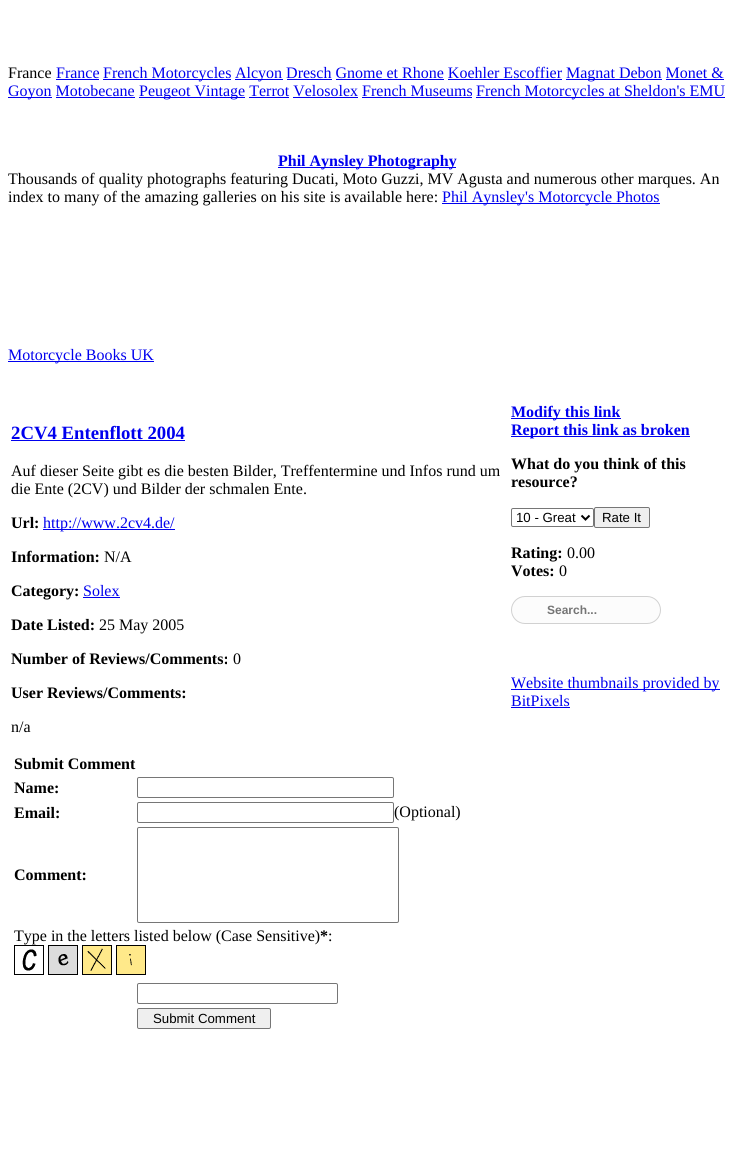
#include <cairo.h>
#include <math.h>
#include <stddef.h>

typedef struct { double x, y, w, h; unsigned color; } box_t;

static void ink(cairo_t *ctx, unsigned color) {
    cairo_set_source_rgb(ctx, (color >> 16) / 255.0, (color >> 8 & 255) / 255.0, (color & 255) / 255.0);
}

static void round_path(cairo_t *ctx, double x, double y, double w, double h, double r) {
    cairo_new_sub_path(ctx);
    cairo_arc(ctx, x + w - r, y + h - r, r, 0, M_PI / 2);
    cairo_arc(ctx, x + r, y + h - r, r, M_PI / 2, M_PI);
    cairo_arc(ctx, x + r, y + r, r, M_PI, 1.5 * M_PI);
    cairo_arc(ctx, x + w - r, y + r, r, 1.5 * M_PI, 2 * M_PI);
    cairo_close_path(ctx);
}

static void paste(cairo_t *ctx, const char *path, double x, double y, double w, double h) {
    cairo_surface_t *image = cairo_image_surface_create_from_png(path);
    cairo_save(ctx);
    cairo_set_source_surface(ctx, image, x, y);
    cairo_rectangle(ctx, x, y, w, h);
    cairo_fill(ctx);
    cairo_restore(ctx);
    cairo_surface_destroy(image);
}

int main(void) {
    cairo_surface_t *surface = cairo_image_surface_create(CAIRO_FORMAT_RGB24, 734, 1172);
    cairo_t *ctx = cairo_create(surface);
    cairo_font_options_t *options = cairo_font_options_create();
    cairo_font_options_set_hint_metrics(options, CAIRO_HINT_METRICS_OFF);
    cairo_font_options_set_hint_style(options, CAIRO_HINT_STYLE_NONE);
    cairo_set_font_options(ctx, options);
    cairo_set_miter_limit(ctx, 4);
    ink(ctx, 0xFFFFFF);
    cairo_paint(ctx);
    cairo_select_font_face(ctx, "Liberation Serif", CAIRO_FONT_SLANT_NORMAL, CAIRO_FONT_WEIGHT_NORMAL);
    cairo_set_font_size(ctx, 16);
    ink(ctx, 0x000000);
    cairo_move_to(ctx, 8, 78);
    cairo_show_text(ctx, "France");
    ink(ctx, 0x0000EE);
    cairo_move_to(ctx, 56, 78);
    cairo_show_text(ctx, "France");
    cairo_rectangle(ctx, 56, 79, 43, 1);
    cairo_fill(ctx);
    cairo_rectangle(ctx, 103, 79, 128, 1);
    cairo_fill(ctx);
    cairo_move_to(ctx, 103, 78);
    cairo_show_text(ctx, "French Motorcycles");
    cairo_rectangle(ctx, 235, 79, 48, 1);
    cairo_fill(ctx);
    cairo_move_to(ctx, 235, 78);
    cairo_show_text(ctx, "Alcyon Dresch Gnome et Rhone Koehler Escoffier");
    cairo_rectangle(ctx, 566, 79, 96, 1);
    cairo_fill(ctx);
    cairo_move_to(ctx, 566, 78);
    cairo_show_text(ctx, "Magnat Debon Monet &");
    {
        static const box_t items[] = {
            {287, 79, 45, 1, 0x0000EE},
            {336, 79, 108, 1, 0x0000EE},
            {448, 79, 114, 1, 0x0000EE},
            {8, 97, 44, 1, 0x0000EE},
        };
        for (size_t i = 0; i < sizeof items / sizeof *items; i++) {
            ink(ctx, items[i].color);
            cairo_rectangle(ctx, items[i].x, items[i].y, items[i].w, items[i].h);
            cairo_fill(ctx);
        }
    }
    cairo_move_to(ctx, 8, 96);
    cairo_show_text(ctx, "Goyon Motobecane");
    cairo_rectangle(ctx, 666, 79, 58, 1);
    cairo_fill(ctx);
    cairo_rectangle(ctx, 139, 97, 106, 1);
    cairo_fill(ctx);
    cairo_move_to(ctx, 139, 96);
    cairo_show_text(ctx, "Peugeot Vintage Terrot Velosolex French Museums");
    cairo_rectangle(ctx, 476, 97, 249, 1);
    cairo_fill(ctx);
    cairo_move_to(ctx, 476, 96);
    cairo_show_text(ctx, "French Motorcycles at Sheldon's EMU");
    {
        static const box_t items[] = {
            {56, 97, 79, 1, 0x0000EE},
            {249, 97, 40, 1, 0x0000EE},
            {293, 97, 65, 1, 0x0000EE},
            {362, 97, 110, 1, 0x0000EE},
            {278, 167, 178, 1, 0x0000EE},
        };
        for (size_t i = 0; i < sizeof items / sizeof *items; i++) {
            ink(ctx, items[i].color);
            cairo_rectangle(ctx, items[i].x, items[i].y, items[i].w, items[i].h);
            cairo_fill(ctx);
        }
    }
    cairo_select_font_face(ctx, "Liberation Serif", CAIRO_FONT_SLANT_NORMAL, CAIRO_FONT_WEIGHT_BOLD);
    cairo_move_to(ctx, 278, 166);
    cairo_show_text(ctx, "Phil Aynsley Photography");
    cairo_select_font_face(ctx, "Liberation Serif", CAIRO_FONT_SLANT_NORMAL, CAIRO_FONT_WEIGHT_NORMAL);
    ink(ctx, 0x000000);
    cairo_move_to(ctx, 8, 184);
    cairo_show_text(ctx, "Thousands of quality photographs featuring Ducati, Moto Guzzi, MV Agusta and numerous other marques. An");
    cairo_move_to(ctx, 8, 202);
    cairo_show_text(ctx, "index to many of the amazing galleries on his site is available here:");
    ink(ctx, 0x0000EE);
    cairo_rectangle(ctx, 442, 203, 218, 1);
    cairo_fill(ctx);
    cairo_move_to(ctx, 442, 202);
    cairo_show_text(ctx, "Phil Aynsley's Motorcycle Photos");
    cairo_rectangle(ctx, 8, 361, 146, 1);
    cairo_fill(ctx);
    cairo_move_to(ctx, 8, 360);
    cairo_show_text(ctx, "Motorcycle Books UK");
    cairo_select_font_face(ctx, "Liberation Serif", CAIRO_FONT_SLANT_NORMAL, CAIRO_FONT_WEIGHT_BOLD);
    cairo_set_font_size(ctx, 18.75);
    cairo_move_to(ctx, 11, 439);
    cairo_show_text(ctx, "2CV4 Entenflott 2004");
    cairo_rectangle(ctx, 11, 440, 174, 1);
    cairo_fill(ctx);
    cairo_select_font_face(ctx, "Liberation Serif", CAIRO_FONT_SLANT_NORMAL, CAIRO_FONT_WEIGHT_NORMAL);
    cairo_set_font_size(ctx, 16);
    ink(ctx, 0x000000);
    cairo_move_to(ctx, 11, 476);
    cairo_show_text(ctx, "Auf dieser Seite gibt es die besten Bilder, Treffentermine und Infos rund um");
    cairo_move_to(ctx, 11, 494);
    cairo_show_text(ctx, "die Ente (2CV) und Bilder der schmalen Ente.");
    cairo_select_font_face(ctx, "Liberation Serif", CAIRO_FONT_SLANT_NORMAL, CAIRO_FONT_WEIGHT_BOLD);
    cairo_move_to(ctx, 11, 528);
    cairo_show_text(ctx, "Url:");
    ink(ctx, 0x0000EE);
    cairo_rectangle(ctx, 43, 529, 132, 1);
    cairo_fill(ctx);
    cairo_select_font_face(ctx, "Liberation Serif", CAIRO_FONT_SLANT_NORMAL, CAIRO_FONT_WEIGHT_NORMAL);
    cairo_move_to(ctx, 43, 528);
    cairo_show_text(ctx, "http://www.2cv4.de/");
    cairo_select_font_face(ctx, "Liberation Serif", CAIRO_FONT_SLANT_NORMAL, CAIRO_FONT_WEIGHT_BOLD);
    ink(ctx, 0x000000);
    cairo_move_to(ctx, 11, 562);
    cairo_show_text(ctx, "Information:");
    cairo_select_font_face(ctx, "Liberation Serif", CAIRO_FONT_SLANT_NORMAL, CAIRO_FONT_WEIGHT_NORMAL);
    cairo_move_to(ctx, 104, 562);
    cairo_show_text(ctx, "N/A");
    cairo_select_font_face(ctx, "Liberation Serif", CAIRO_FONT_SLANT_NORMAL, CAIRO_FONT_WEIGHT_BOLD);
    cairo_move_to(ctx, 11, 596);
    cairo_show_text(ctx, "Category:");
    cairo_select_font_face(ctx, "Liberation Serif", CAIRO_FONT_SLANT_NORMAL, CAIRO_FONT_WEIGHT_NORMAL);
    ink(ctx, 0x0000EE);
    cairo_move_to(ctx, 83, 596);
    cairo_show_text(ctx, "Solex");
    cairo_rectangle(ctx, 83, 597, 37, 1);
    cairo_fill(ctx);
    cairo_select_font_face(ctx, "Liberation Serif", CAIRO_FONT_SLANT_NORMAL, CAIRO_FONT_WEIGHT_BOLD);
    ink(ctx, 0x000000);
    cairo_move_to(ctx, 11, 630);
    cairo_show_text(ctx, "Date Listed:");
    cairo_select_font_face(ctx, "Liberation Serif", CAIRO_FONT_SLANT_NORMAL, CAIRO_FONT_WEIGHT_NORMAL);
    cairo_move_to(ctx, 99, 630);
    cairo_show_text(ctx, "25 May 2005");
    cairo_select_font_face(ctx, "Liberation Serif", CAIRO_FONT_SLANT_NORMAL, CAIRO_FONT_WEIGHT_BOLD);
    cairo_move_to(ctx, 11, 664);
    cairo_show_text(ctx, "Number of Reviews/Comments:");
    cairo_select_font_face(ctx, "Liberation Serif", CAIRO_FONT_SLANT_NORMAL, CAIRO_FONT_WEIGHT_NORMAL);
    cairo_move_to(ctx, 233, 664);
    cairo_show_text(ctx, "0");
    cairo_select_font_face(ctx, "Liberation Serif", CAIRO_FONT_SLANT_NORMAL, CAIRO_FONT_WEIGHT_BOLD);
    cairo_move_to(ctx, 11, 698);
    cairo_show_text(ctx, "User Reviews/Comments:");
    cairo_select_font_face(ctx, "Liberation Serif", CAIRO_FONT_SLANT_NORMAL, CAIRO_FONT_WEIGHT_NORMAL);
    cairo_move_to(ctx, 11, 732);
    cairo_show_text(ctx, "n/a");
    cairo_select_font_face(ctx, "Liberation Serif", CAIRO_FONT_SLANT_NORMAL, CAIRO_FONT_WEIGHT_BOLD);
    cairo_move_to(ctx, 14, 769);
    cairo_show_text(ctx, "Submit Comment");
    cairo_move_to(ctx, 14, 793);
    cairo_show_text(ctx, "Name:");
    round_path(ctx, 137.5, 777.5, 256, 20, 1.5);
    ink(ctx, 0x767676);
    cairo_set_line_width(ctx, 1);
    cairo_stroke(ctx);
    ink(ctx, 0x000000);
    cairo_move_to(ctx, 14, 818);
    cairo_show_text(ctx, "Email:");
    round_path(ctx, 137.5, 802.5, 256, 20, 1.5);
    ink(ctx, 0x767676);
    cairo_stroke(ctx);
    cairo_select_font_face(ctx, "Liberation Serif", CAIRO_FONT_SLANT_NORMAL, CAIRO_FONT_WEIGHT_NORMAL);
    ink(ctx, 0x000000);
    cairo_move_to(ctx, 394, 817);
    cairo_show_text(ctx, "(Optional)");
    cairo_select_font_face(ctx, "Liberation Serif", CAIRO_FONT_SLANT_NORMAL, CAIRO_FONT_WEIGHT_BOLD);
    cairo_move_to(ctx, 14, 880);
    cairo_show_text(ctx, "Comment:");
    round_path(ctx, 137.5, 827.5, 261, 95, 1.5);
    ink(ctx, 0x767676);
    cairo_stroke(ctx);
    cairo_select_font_face(ctx, "Liberation Serif", CAIRO_FONT_SLANT_NORMAL, CAIRO_FONT_WEIGHT_NORMAL);
    ink(ctx, 0x000000);
    cairo_move_to(ctx, 14, 941);
    cairo_show_text(ctx, "Type in the letters listed below (Case Sensitive)");
    cairo_select_font_face(ctx, "Liberation Serif", CAIRO_FONT_SLANT_NORMAL, CAIRO_FONT_WEIGHT_BOLD);
    cairo_move_to(ctx, 320, 941);
    cairo_show_text(ctx, "*");
    cairo_select_font_face(ctx, "Liberation Serif", CAIRO_FONT_SLANT_NORMAL, CAIRO_FONT_WEIGHT_NORMAL);
    cairo_move_to(ctx, 328, 941);
    cairo_show_text(ctx, ":");
    paste(ctx, "media/1.png", 14, 945, 30, 30);
    paste(ctx, "media/2.png", 48, 945, 30, 30);
    paste(ctx, "media/3.png", 82, 945, 30, 30);
    paste(ctx, "media/4.png", 116, 945, 30, 30);
    round_path(ctx, 137.5, 983.5, 200, 20, 1.5);
    ink(ctx, 0x767676);
    cairo_stroke(ctx);
    ink(ctx, 0xEFEFEF);
    round_path(ctx, 137.5, 1008.5, 133, 20, 1.5);
    cairo_fill_preserve(ctx);
    ink(ctx, 0x767676);
    cairo_stroke(ctx);
    cairo_select_font_face(ctx, "Liberation Sans", CAIRO_FONT_SLANT_NORMAL, CAIRO_FONT_WEIGHT_NORMAL);
    cairo_set_font_size(ctx, 13.25);
    ink(ctx, 0x000000);
    cairo_move_to(ctx, 153, 1023);
    cairo_show_text(ctx, "Submit Comment");
    ink(ctx, 0x0000EE);
    cairo_rectangle(ctx, 511, 418, 110, 1);
    cairo_fill(ctx);
    cairo_select_font_face(ctx, "Liberation Serif", CAIRO_FONT_SLANT_NORMAL, CAIRO_FONT_WEIGHT_BOLD);
    cairo_set_font_size(ctx, 16);
    cairo_move_to(ctx, 511, 417);
    cairo_show_text(ctx, "Modify this link");
    cairo_rectangle(ctx, 511, 436, 179, 1);
    cairo_fill(ctx);
    cairo_move_to(ctx, 511, 435);
    cairo_show_text(ctx, "Report this link as broken");
    ink(ctx, 0x000000);
    cairo_move_to(ctx, 511, 469);
    cairo_show_text(ctx, "What do you think of this");
    cairo_move_to(ctx, 511, 487);
    cairo_show_text(ctx, "resource?");
    round_path(ctx, 511.5, 508.5, 82, 18, 1.5);
    ink(ctx, 0x767676);
    cairo_stroke(ctx);
    cairo_new_path(ctx);
    cairo_move_to(ctx, 581.5, 515.5);
    cairo_line_to(ctx, 585.5, 519.5);
    cairo_line_to(ctx, 589.5, 515.5);
    ink(ctx, 0x000000);
    cairo_set_line_width(ctx, 2);
    cairo_stroke(ctx);
    cairo_select_font_face(ctx, "Liberation Sans", CAIRO_FONT_SLANT_NORMAL, CAIRO_FONT_WEIGHT_NORMAL);
    cairo_set_font_size(ctx, 13.25);
    cairo_move_to(ctx, 516, 522);
    cairo_show_text(ctx, "10 - Great");
    ink(ctx, 0xEFEFEF);
    round_path(ctx, 594.5, 507.5, 55, 20, 1.5);
    cairo_fill_preserve(ctx);
    ink(ctx, 0x767676);
    cairo_set_line_width(ctx, 1);
    cairo_stroke(ctx);
    ink(ctx, 0x000000);
    cairo_move_to(ctx, 602, 522);
    cairo_show_text(ctx, "Rate It");
    cairo_select_font_face(ctx, "Liberation Serif", CAIRO_FONT_SLANT_NORMAL, CAIRO_FONT_WEIGHT_BOLD);
    cairo_set_font_size(ctx, 16);
    cairo_move_to(ctx, 511, 558);
    cairo_show_text(ctx, "Rating:");
    cairo_select_font_face(ctx, "Liberation Serif", CAIRO_FONT_SLANT_NORMAL, CAIRO_FONT_WEIGHT_NORMAL);
    cairo_move_to(ctx, 567, 558);
    cairo_show_text(ctx, "0.00");
    cairo_select_font_face(ctx, "Liberation Serif", CAIRO_FONT_SLANT_NORMAL, CAIRO_FONT_WEIGHT_BOLD);
    cairo_move_to(ctx, 511, 576);
    cairo_show_text(ctx, "Votes:");
    cairo_select_font_face(ctx, "Liberation Serif", CAIRO_FONT_SLANT_NORMAL, CAIRO_FONT_WEIGHT_NORMAL);
    cairo_move_to(ctx, 559, 576);
    cairo_show_text(ctx, "0");
    ink(ctx, 0xFCFCFC);
    round_path(ctx, 511.5, 596.5, 149, 27, 13.5);
    cairo_fill_preserve(ctx);
    ink(ctx, 0xD1D1D1);
    cairo_stroke(ctx);
    cairo_select_font_face(ctx, "Liberation Sans", CAIRO_FONT_SLANT_NORMAL, CAIRO_FONT_WEIGHT_BOLD);
    cairo_set_font_size(ctx, 12);
    ink(ctx, 0x757575);
    cairo_move_to(ctx, 547, 614);
    cairo_show_text(ctx, "Search...");
    ink(ctx, 0x0000EE);
    cairo_rectangle(ctx, 511, 689, 209, 1);
    cairo_fill(ctx);
    cairo_select_font_face(ctx, "Liberation Serif", CAIRO_FONT_SLANT_NORMAL, CAIRO_FONT_WEIGHT_NORMAL);
    cairo_set_font_size(ctx, 16);
    cairo_move_to(ctx, 511, 688);
    cairo_show_text(ctx, "Website thumbnails provided by");
    cairo_move_to(ctx, 511, 706);
    cairo_show_text(ctx, "BitPixels");
    cairo_rectangle(ctx, 511, 707, 59, 1);
    cairo_fill(ctx);
    cairo_surface_write_to_png(surface, "image.png");
    cairo_font_options_destroy(options);
    cairo_destroy(ctx);
    cairo_surface_destroy(surface);
    return 0;
}
